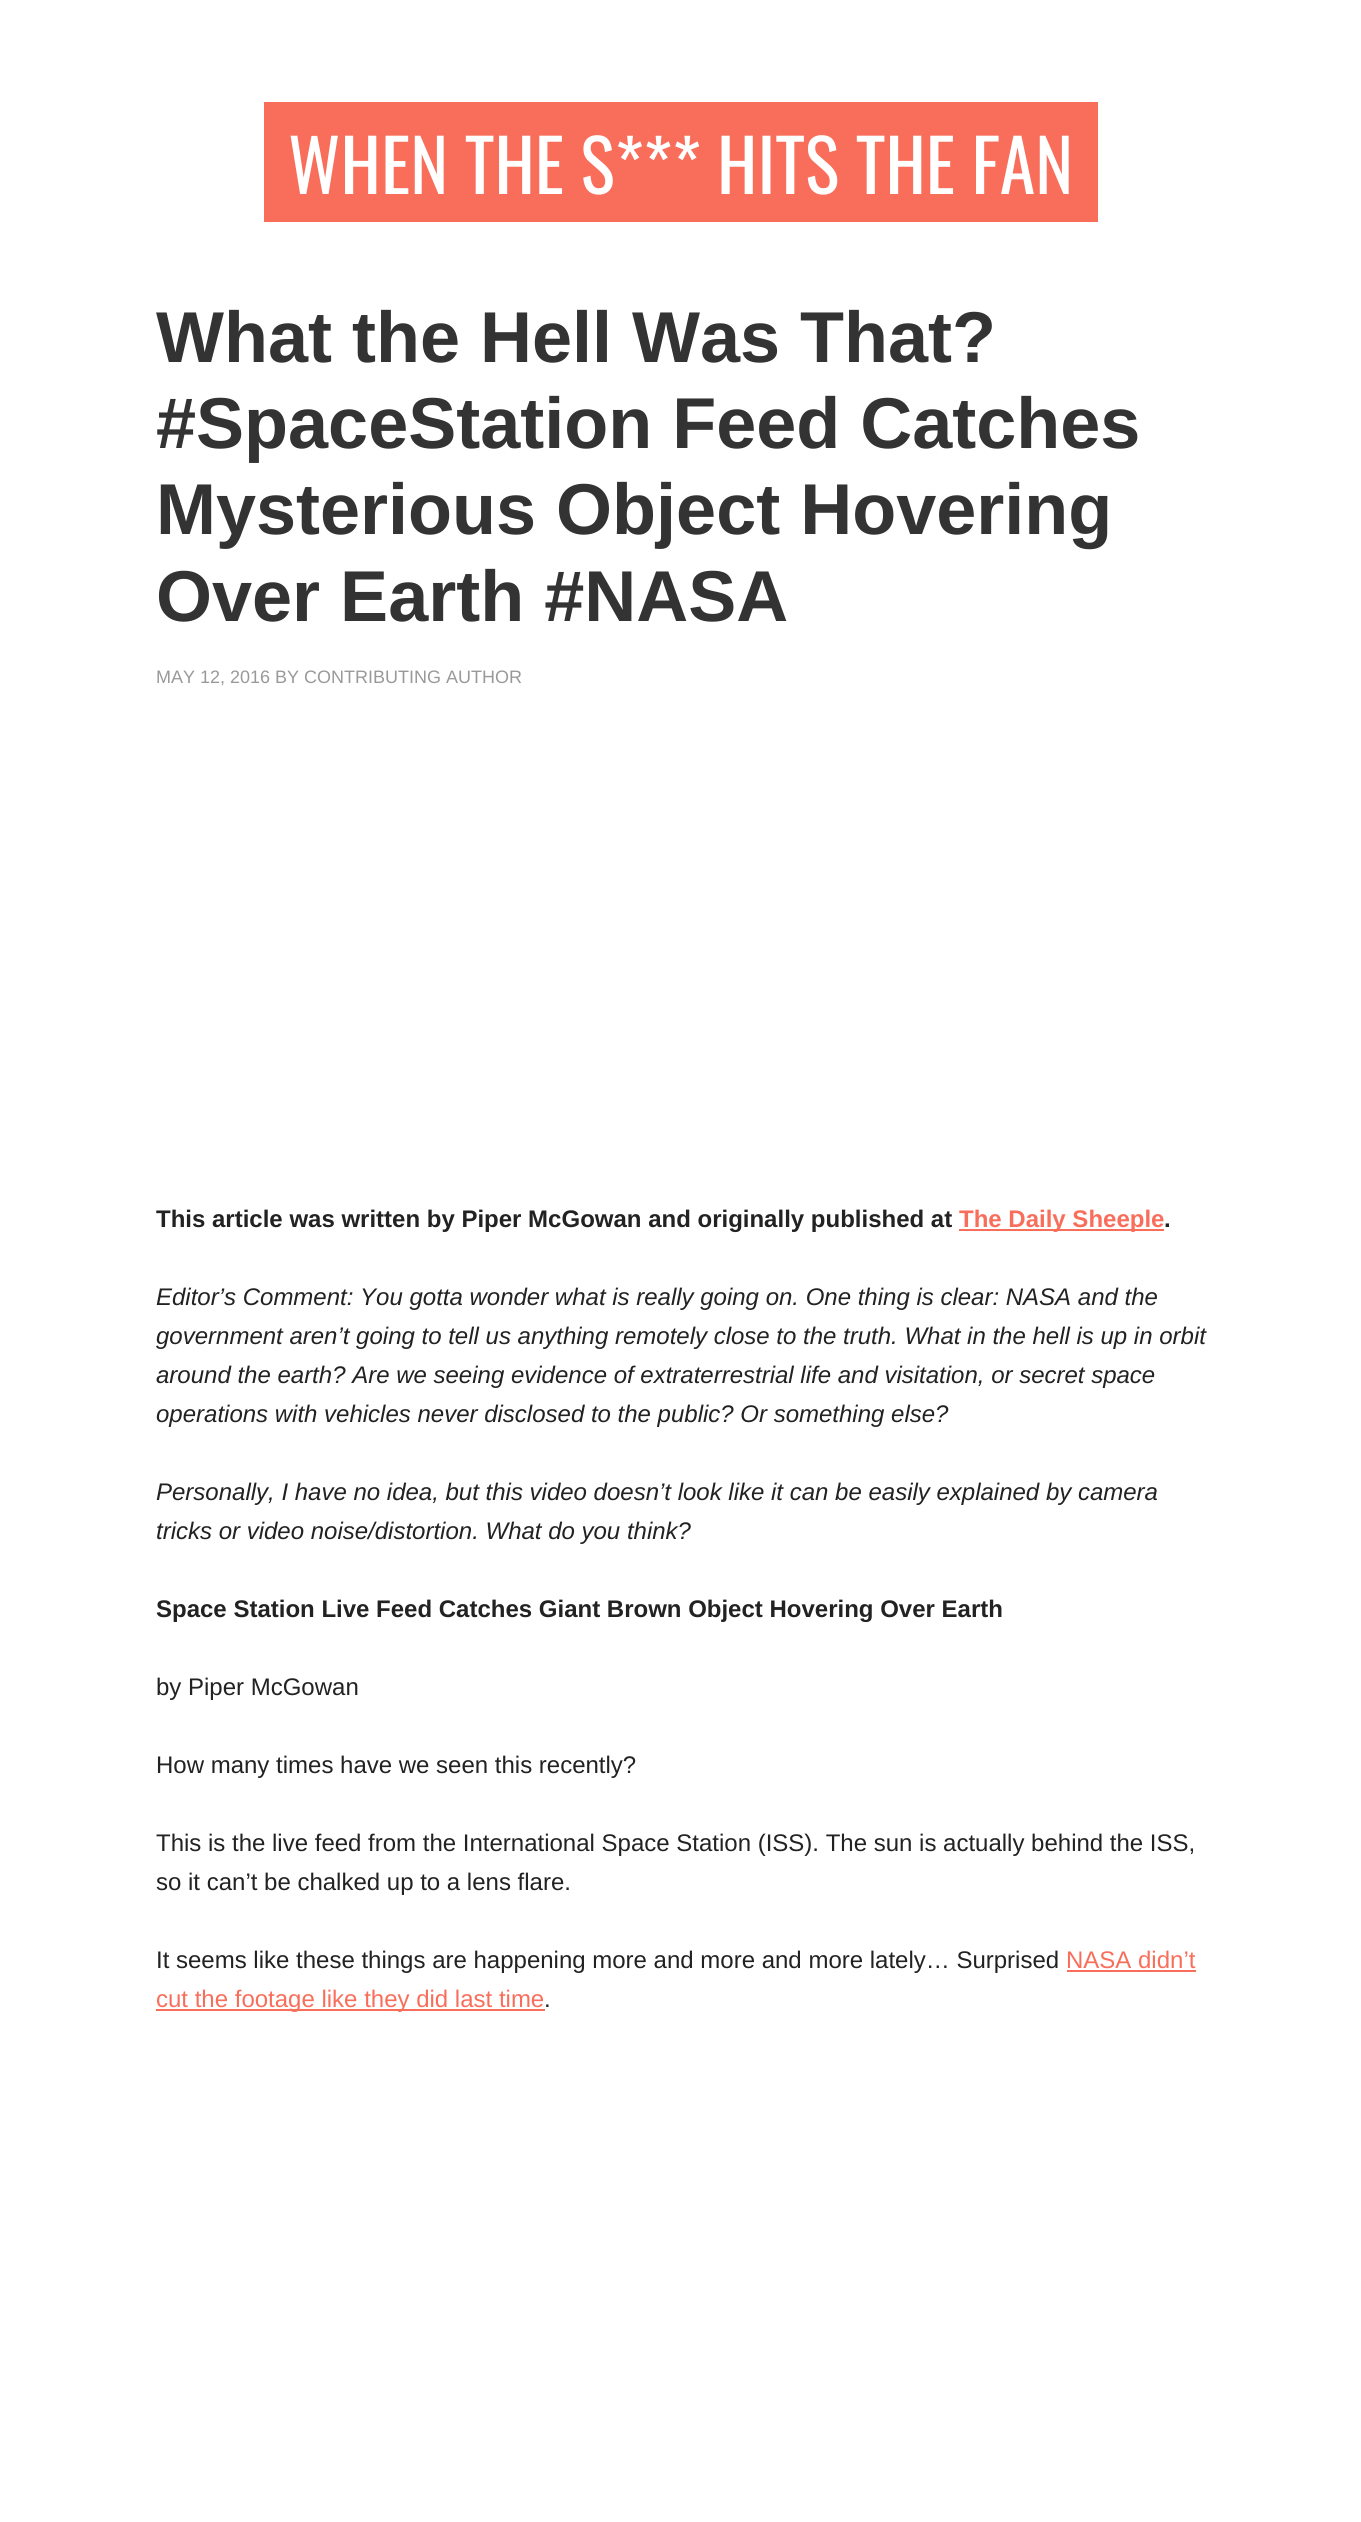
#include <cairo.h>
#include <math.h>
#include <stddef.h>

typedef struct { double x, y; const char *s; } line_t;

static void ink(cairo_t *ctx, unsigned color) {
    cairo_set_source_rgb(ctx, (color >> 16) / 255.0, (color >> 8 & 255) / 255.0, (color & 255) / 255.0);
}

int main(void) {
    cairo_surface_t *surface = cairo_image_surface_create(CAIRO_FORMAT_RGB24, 1361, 2522);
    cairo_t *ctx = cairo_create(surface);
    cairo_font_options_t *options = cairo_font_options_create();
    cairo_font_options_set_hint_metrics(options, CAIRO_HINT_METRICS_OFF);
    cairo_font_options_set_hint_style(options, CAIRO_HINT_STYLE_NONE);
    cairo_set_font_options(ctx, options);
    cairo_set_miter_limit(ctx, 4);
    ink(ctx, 0xFFFFFF);
    cairo_paint(ctx);
    ink(ctx, 0xF96E5B);
    cairo_rectangle(ctx, 264, 102, 834, 120);
    cairo_fill(ctx);
    cairo_select_font_face(ctx, "Oswald", CAIRO_FONT_SLANT_NORMAL, CAIRO_FONT_WEIGHT_NORMAL);
    cairo_set_font_size(ctx, 72);
    ink(ctx, 0xFFFFFF);
    cairo_move_to(ctx, 288, 194);
    cairo_show_text(ctx, "WHEN THE S*** HITS THE FAN");
    cairo_select_font_face(ctx, "Liberation Sans", CAIRO_FONT_SLANT_NORMAL, CAIRO_FONT_WEIGHT_BOLD);
    ink(ctx, 0x333333);
    {
        static const line_t items[] = {
            {156, 362, "What the Hell Was That?"},
            {156, 448, "#SpaceStation Feed Catches"},
            {156, 534, "Mysterious Object Hovering"},
            {156, 621, "Over Earth #NASA"},
        };
        for (size_t i = 0; i < sizeof items / sizeof *items; i++) {
            cairo_move_to(ctx, items[i].x, items[i].y);
            cairo_show_text(ctx, items[i].s);
        }
    }
    cairo_select_font_face(ctx, "Liberation Sans", CAIRO_FONT_SLANT_NORMAL, CAIRO_FONT_WEIGHT_NORMAL);
    cairo_set_font_size(ctx, 18);
    ink(ctx, 0x999999);
    cairo_move_to(ctx, 156, 683);
    cairo_show_text(ctx, "MAY 12, 2016 BY CONTRIBUTING AUTHOR");
    cairo_select_font_face(ctx, "Liberation Sans", CAIRO_FONT_SLANT_NORMAL, CAIRO_FONT_WEIGHT_BOLD);
    cairo_set_font_size(ctx, 24);
    ink(ctx, 0x222222);
    cairo_move_to(ctx, 156, 1227);
    cairo_show_text(ctx, "This article was written by Piper McGowan and originally published at");
    ink(ctx, 0xF96E5B);
    cairo_rectangle(ctx, 959, 1229, 205, 2);
    cairo_fill(ctx);
    cairo_move_to(ctx, 959, 1227);
    cairo_show_text(ctx, "The Daily Sheeple");
    ink(ctx, 0x222222);
    cairo_move_to(ctx, 1164, 1227);
    cairo_show_text(ctx, ".");
    cairo_select_font_face(ctx, "Liberation Sans", CAIRO_FONT_SLANT_ITALIC, CAIRO_FONT_WEIGHT_NORMAL);
    {
        static const line_t items[] = {
            {156, 1305, "Editor’s Comment: You gotta wonder what is really going on. One thing is clear: NASA and the"},
            {156, 1344, "government aren’t going to tell us anything remotely close to the truth. What in the hell is up in orbit"},
            {156, 1383, "around the earth? Are we seeing evidence of extraterrestrial life and visitation, or secret space"},
            {156, 1422, "operations with vehicles never disclosed to the public? Or something else?"},
            {156, 1500, "Personally, I have no idea, but this video doesn’t look like it can be easily explained by camera"},
            {156, 1539, "tricks or video noise/distortion. What do you think?"},
        };
        for (size_t i = 0; i < sizeof items / sizeof *items; i++) {
            cairo_move_to(ctx, items[i].x, items[i].y);
            cairo_show_text(ctx, items[i].s);
        }
    }
    cairo_select_font_face(ctx, "Liberation Sans", CAIRO_FONT_SLANT_NORMAL, CAIRO_FONT_WEIGHT_BOLD);
    cairo_move_to(ctx, 156, 1617);
    cairo_show_text(ctx, "Space Station Live Feed Catches Giant Brown Object Hovering Over Earth");
    cairo_select_font_face(ctx, "Liberation Sans", CAIRO_FONT_SLANT_NORMAL, CAIRO_FONT_WEIGHT_NORMAL);
    {
        static const line_t items[] = {
            {156, 1695, "by Piper McGowan"},
            {156, 1773, "How many times have we seen this recently?"},
            {156, 1851, "This is the live feed from the International Space Station (ISS). The sun is actually behind the ISS,"},
            {156, 1890, "so it can’t be chalked up to a lens flare."},
            {156, 1968, "It seems like these things are happening more and more and more lately… Surprised"},
        };
        for (size_t i = 0; i < sizeof items / sizeof *items; i++) {
            cairo_move_to(ctx, items[i].x, items[i].y);
            cairo_show_text(ctx, items[i].s);
        }
    }
    ink(ctx, 0xF96E5B);
    cairo_move_to(ctx, 1066, 1968);
    cairo_show_text(ctx, "NASA didn’t");
    cairo_rectangle(ctx, 1067, 1970, 129, 2);
    cairo_fill(ctx);
    cairo_rectangle(ctx, 156, 2009, 389, 2);
    cairo_fill(ctx);
    cairo_move_to(ctx, 156, 2007);
    cairo_show_text(ctx, "cut the footage like they did last time");
    ink(ctx, 0x222222);
    cairo_move_to(ctx, 544, 2007);
    cairo_show_text(ctx, ".");
    cairo_surface_write_to_png(surface, "image.png");
    cairo_font_options_destroy(options);
    cairo_destroy(ctx);
    cairo_surface_destroy(surface);
    return 0;
}
